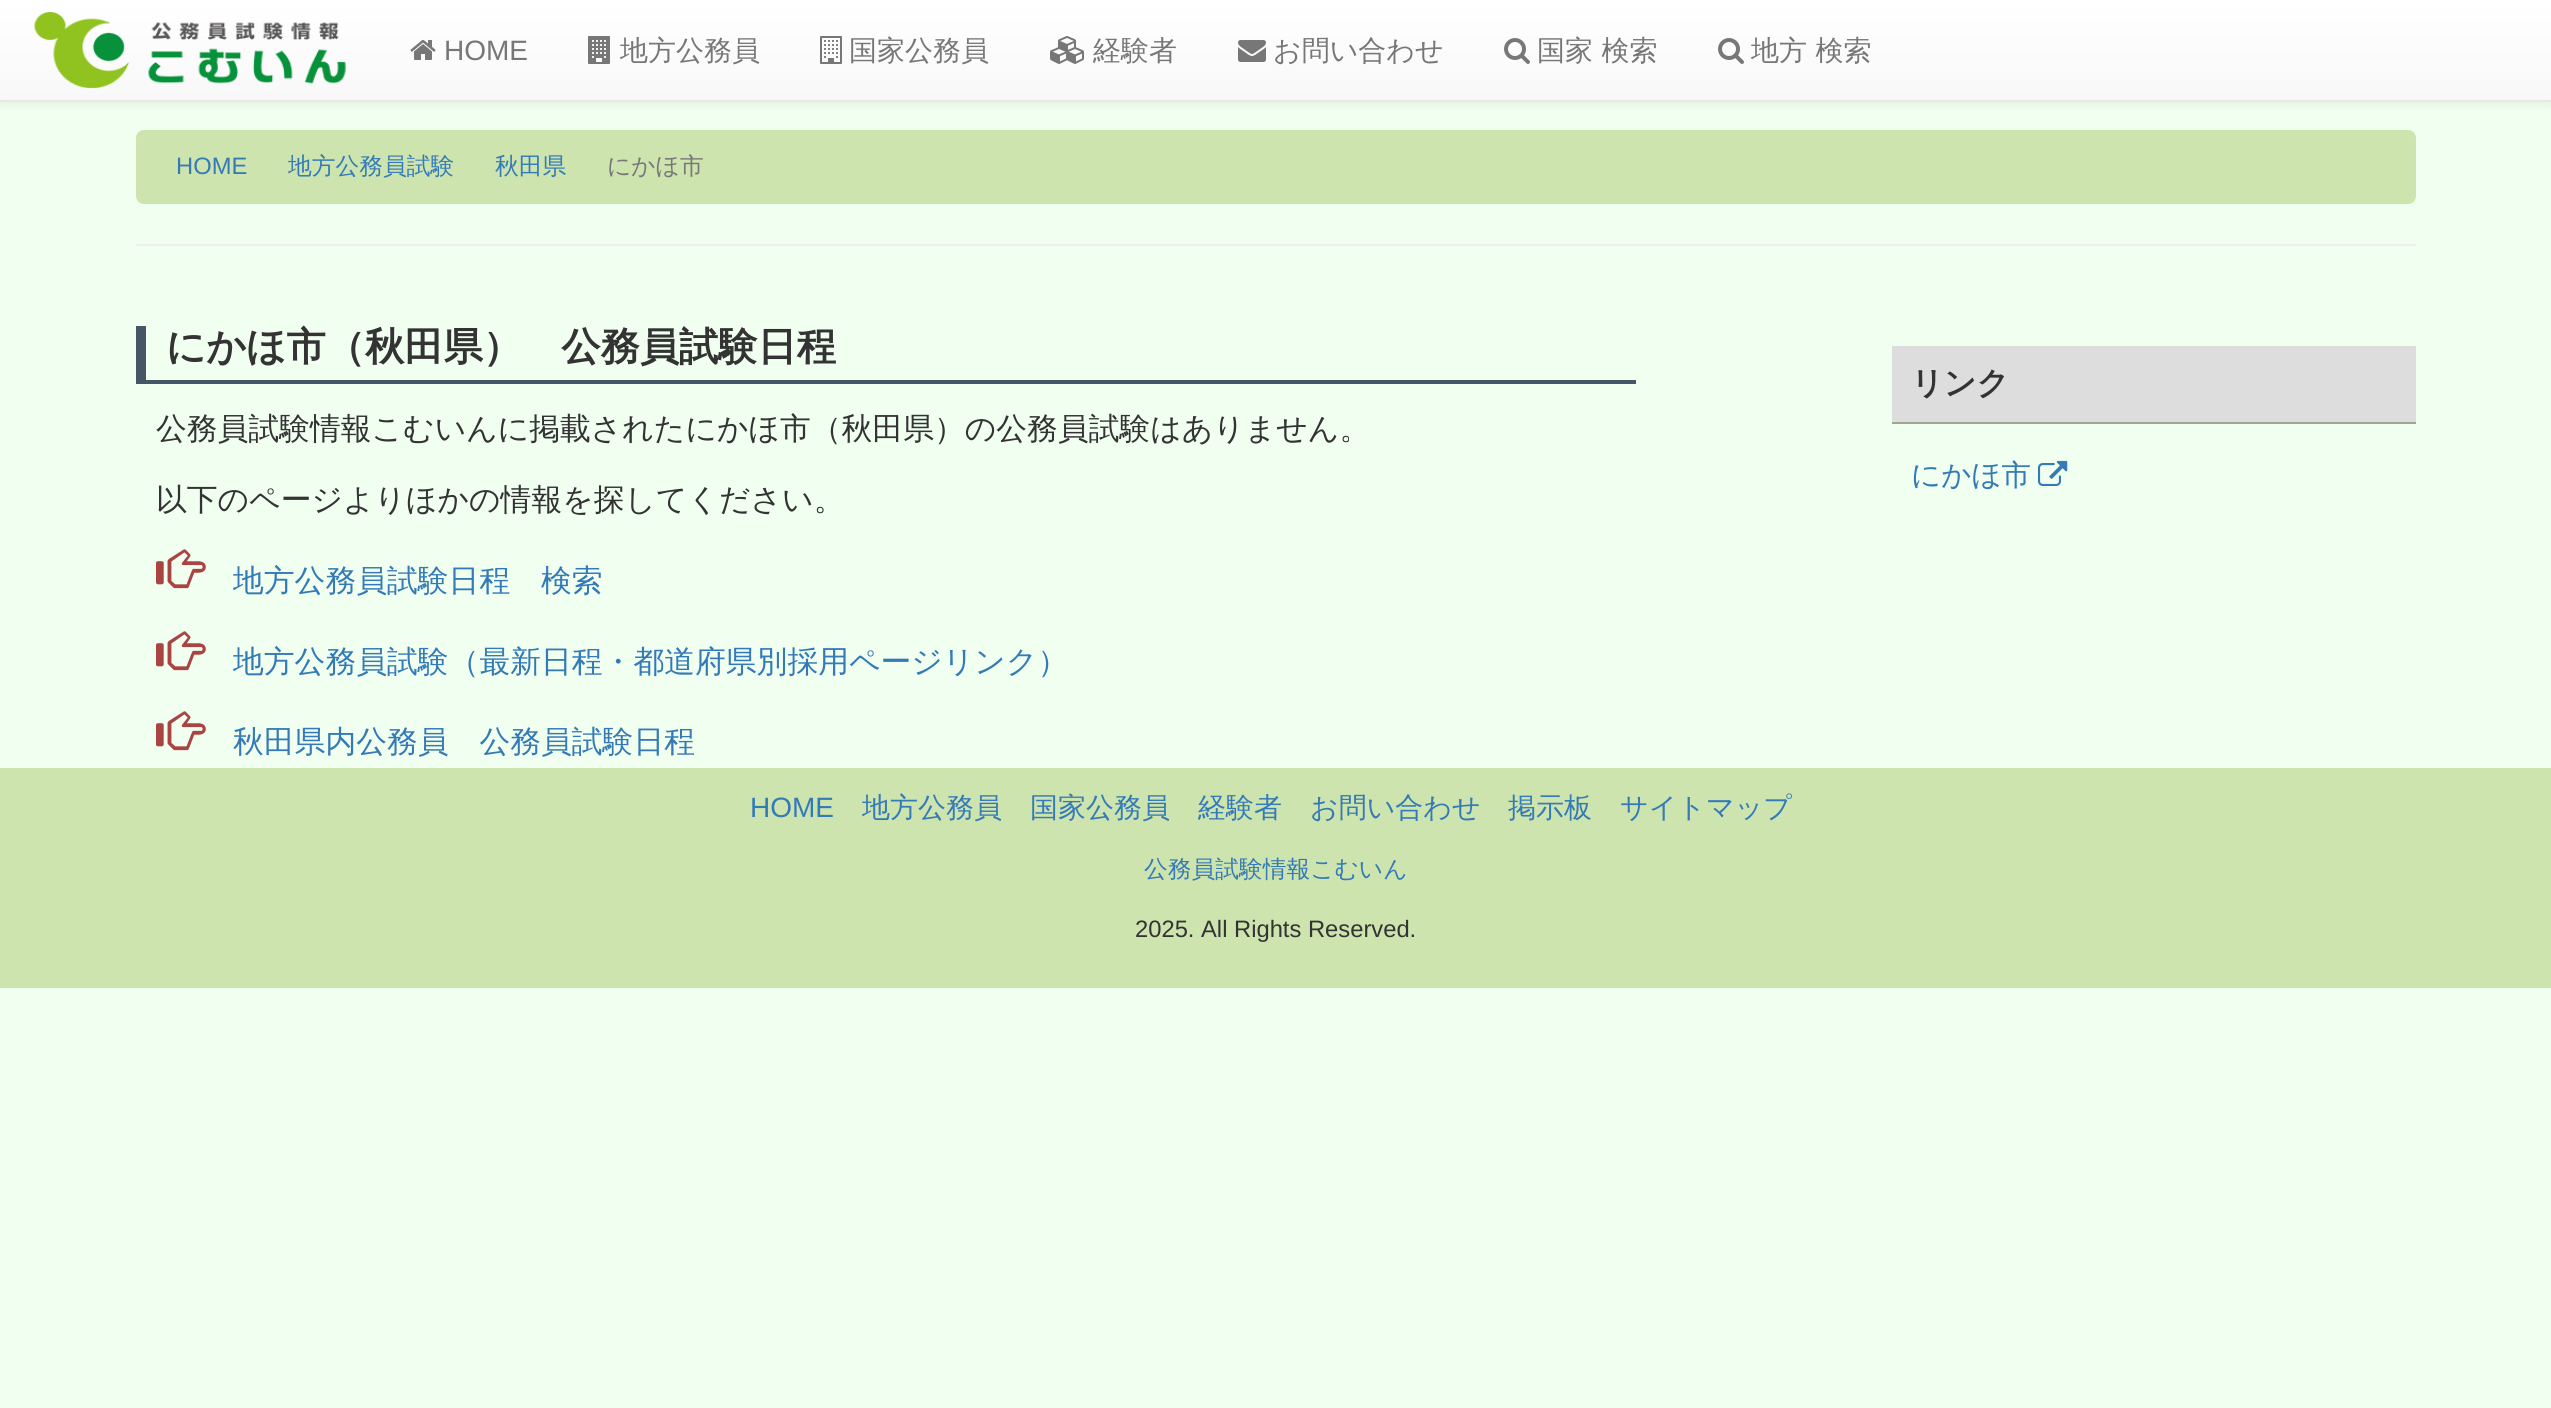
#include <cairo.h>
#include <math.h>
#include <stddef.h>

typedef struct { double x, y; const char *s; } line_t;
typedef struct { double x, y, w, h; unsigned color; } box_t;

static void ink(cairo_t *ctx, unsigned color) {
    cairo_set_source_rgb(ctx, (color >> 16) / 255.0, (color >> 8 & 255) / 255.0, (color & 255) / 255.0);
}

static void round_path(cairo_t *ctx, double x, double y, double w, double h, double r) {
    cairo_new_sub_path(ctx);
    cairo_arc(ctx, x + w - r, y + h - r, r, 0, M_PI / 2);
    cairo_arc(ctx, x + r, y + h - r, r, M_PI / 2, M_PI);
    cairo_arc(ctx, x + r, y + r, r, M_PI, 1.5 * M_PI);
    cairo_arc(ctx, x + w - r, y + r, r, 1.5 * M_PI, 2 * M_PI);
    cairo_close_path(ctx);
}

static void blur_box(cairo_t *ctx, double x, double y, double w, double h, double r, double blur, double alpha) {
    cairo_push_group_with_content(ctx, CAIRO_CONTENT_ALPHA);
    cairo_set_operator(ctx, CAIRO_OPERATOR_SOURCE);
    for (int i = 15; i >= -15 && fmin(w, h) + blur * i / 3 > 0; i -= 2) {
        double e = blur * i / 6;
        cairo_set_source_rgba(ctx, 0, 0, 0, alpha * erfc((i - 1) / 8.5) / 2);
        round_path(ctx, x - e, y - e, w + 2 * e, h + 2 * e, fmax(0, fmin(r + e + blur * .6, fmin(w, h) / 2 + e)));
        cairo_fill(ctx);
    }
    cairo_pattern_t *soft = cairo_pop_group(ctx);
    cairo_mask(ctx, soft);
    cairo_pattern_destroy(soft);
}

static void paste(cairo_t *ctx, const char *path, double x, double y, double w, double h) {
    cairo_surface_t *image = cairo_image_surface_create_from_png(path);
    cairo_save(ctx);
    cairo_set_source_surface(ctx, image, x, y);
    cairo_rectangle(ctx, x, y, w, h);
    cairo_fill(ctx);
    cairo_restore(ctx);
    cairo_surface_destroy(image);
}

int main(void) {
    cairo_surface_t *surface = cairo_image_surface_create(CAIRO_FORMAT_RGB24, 2551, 1408);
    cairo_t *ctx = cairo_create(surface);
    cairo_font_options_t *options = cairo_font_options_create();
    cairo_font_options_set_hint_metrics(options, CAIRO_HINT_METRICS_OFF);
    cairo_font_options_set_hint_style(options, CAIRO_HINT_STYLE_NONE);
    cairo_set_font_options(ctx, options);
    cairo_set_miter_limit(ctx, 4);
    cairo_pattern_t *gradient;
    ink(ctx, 0xF0FFF0);
    cairo_paint(ctx);
    ink(ctx, 0x000000);
    blur_box(ctx, 0, 2, 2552, 102, 0, 5, 0.07);
    gradient = cairo_pattern_create_linear(1276, 0, 1276, 100);
    cairo_pattern_add_color_stop_rgba(gradient, 0, 1, 1, 1, 1);
    cairo_pattern_add_color_stop_rgba(gradient, 1, 0.973, 0.973, 0.973, 1);
    cairo_set_source(ctx, gradient);
    cairo_pattern_destroy(gradient);
    cairo_rectangle(ctx, 0, 0, 2551, 100);
    cairo_fill(ctx);
    ink(ctx, 0xE7E7E7);
    cairo_rectangle(ctx, 0, 100, 2551, 2);
    cairo_fill(ctx);
    paste(ctx, "media/1.png", 34, 12, 312, 77);
    paste(ctx, "media/2.png", 410, 40, 26, 20);
    cairo_select_font_face(ctx, "Liberation Sans", CAIRO_FONT_SLANT_NORMAL, CAIRO_FONT_WEIGHT_NORMAL);
    cairo_set_font_size(ctx, 28);
    ink(ctx, 0x777777);
    cairo_move_to(ctx, 444, 60);
    cairo_show_text(ctx, "HOME");
    paste(ctx, "media/3.png", 588, 36, 22, 28);
    cairo_select_font_face(ctx, "WenQuanYi Zen Hei Medium", CAIRO_FONT_SLANT_NORMAL, CAIRO_FONT_WEIGHT_NORMAL);
    cairo_move_to(ctx, 620, 60);
    cairo_show_text(ctx, "地方公務員");
    paste(ctx, "media/4.png", 820, 36, 22, 28);
    cairo_move_to(ctx, 849, 60);
    cairo_show_text(ctx, "国家公務員");
    paste(ctx, "media/5.png", 1050, 36, 34, 28);
    cairo_move_to(ctx, 1093, 60);
    cairo_show_text(ctx, "経験者");
    paste(ctx, "media/6.png", 1238, 40, 28, 22);
    cairo_move_to(ctx, 1273, 60);
    cairo_show_text(ctx, "お問い合わせ");
    paste(ctx, "media/7.png", 1504, 38, 26, 26);
    cairo_move_to(ctx, 1537, 60);
    cairo_show_text(ctx, "国家 検索");
    paste(ctx, "media/7.png", 1718, 38, 26, 26);
    cairo_move_to(ctx, 1751, 60);
    cairo_show_text(ctx, "地方 検索");
    ink(ctx, 0xCEE4AE);
    round_path(ctx, 136, 130, 2280, 74, 8);
    cairo_fill(ctx);
    cairo_select_font_face(ctx, "Liberation Sans", CAIRO_FONT_SLANT_NORMAL, CAIRO_FONT_WEIGHT_NORMAL);
    cairo_set_font_size(ctx, 23.75);
    ink(ctx, 0x337AB7);
    cairo_move_to(ctx, 176, 174);
    cairo_show_text(ctx, "HOME");
    cairo_select_font_face(ctx, "WenQuanYi Zen Hei Medium", CAIRO_FONT_SLANT_NORMAL, CAIRO_FONT_WEIGHT_NORMAL);
    cairo_move_to(ctx, 288, 174);
    cairo_show_text(ctx, "地方公務員試験");
    cairo_move_to(ctx, 495, 174);
    cairo_show_text(ctx, "秋田県");
    ink(ctx, 0x777777);
    cairo_move_to(ctx, 607, 174);
    cairo_show_text(ctx, "にかほ市");
    {
        static const box_t items[] = {
            {136, 244, 2280, 2, 0xEEEEEE},
            {146, 380, 1490, 4, 0x455765},
            {136, 326, 10, 58, 0x455765},
        };
        for (size_t i = 0; i < sizeof items / sizeof *items; i++) {
            ink(ctx, items[i].color);
            cairo_rectangle(ctx, items[i].x, items[i].y, items[i].w, items[i].h);
            cairo_fill(ctx);
        }
    }
    cairo_select_font_face(ctx, "WenQuanYi Zen Hei", CAIRO_FONT_SLANT_NORMAL, CAIRO_FONT_WEIGHT_BOLD);
    cairo_set_font_size(ctx, 39.25);
    ink(ctx, 0x333333);
    cairo_move_to(ctx, 166, 360);
    cairo_show_text(ctx, "にかほ市（秋田県）　公務員試験日程");
    cairo_select_font_face(ctx, "WenQuanYi Zen Hei Medium", CAIRO_FONT_SLANT_NORMAL, CAIRO_FONT_WEIGHT_NORMAL);
    cairo_set_font_size(ctx, 30.8);
    cairo_move_to(ctx, 156, 439);
    cairo_show_text(ctx, "公務員試験情報こむいんに掲載されたにかほ市（秋田県）の公務員試験はありません。");
    cairo_move_to(ctx, 156, 510);
    cairo_show_text(ctx, "以下のページよりほかの情報を探してください。");
    paste(ctx, "media/8.png", 156, 549, 50, 40);
    ink(ctx, 0x337AB7);
    cairo_move_to(ctx, 233, 591);
    cairo_show_text(ctx, "地方公務員試験日程　検索");
    paste(ctx, "media/8.png", 156, 631, 50, 40);
    cairo_move_to(ctx, 233, 672);
    cairo_show_text(ctx, "地方公務員試験（最新日程・都道府県別採用ページリンク）");
    paste(ctx, "media/8.png", 156, 711, 50, 40);
    cairo_move_to(ctx, 233, 752);
    cairo_show_text(ctx, "秋田県内公務員　公務員試験日程");
    ink(ctx, 0xDDDDDD);
    cairo_rectangle(ctx, 1892, 346, 524, 76);
    cairo_fill(ctx);
    ink(ctx, 0x9BA88D);
    cairo_rectangle(ctx, 1892, 422, 524, 2);
    cairo_fill(ctx);
    cairo_select_font_face(ctx, "WenQuanYi Zen Hei", CAIRO_FONT_SLANT_NORMAL, CAIRO_FONT_WEIGHT_BOLD);
    cairo_set_font_size(ctx, 32);
    ink(ctx, 0x333333);
    cairo_move_to(ctx, 1911, 394);
    cairo_show_text(ctx, "リンク");
    cairo_select_font_face(ctx, "WenQuanYi Zen Hei Medium", CAIRO_FONT_SLANT_NORMAL, CAIRO_FONT_WEIGHT_NORMAL);
    cairo_set_font_size(ctx, 29.5);
    ink(ctx, 0x337AB7);
    cairo_move_to(ctx, 1911, 485);
    cairo_show_text(ctx, "にかほ市");
    paste(ctx, "media/9.png", 2038, 460, 30, 26);
    ink(ctx, 0xCEE4AE);
    cairo_rectangle(ctx, 0, 768, 2551, 220);
    cairo_fill(ctx);
    cairo_select_font_face(ctx, "Liberation Sans", CAIRO_FONT_SLANT_NORMAL, CAIRO_FONT_WEIGHT_NORMAL);
    cairo_set_font_size(ctx, 28);
    ink(ctx, 0x337AB7);
    cairo_move_to(ctx, 750, 817);
    cairo_show_text(ctx, "HOME");
    cairo_select_font_face(ctx, "WenQuanYi Zen Hei Medium", CAIRO_FONT_SLANT_NORMAL, CAIRO_FONT_WEIGHT_NORMAL);
    {
        static const line_t items[] = {
            {862, 817, "地方公務員"},
            {1030, 817, "国家公務員"},
            {1198, 817, "経験者"},
            {1310, 817, "お問い合わせ"},
            {1508, 817, "掲示板"},
            {1620, 817, "サイトマップ"},
        };
        for (size_t i = 0; i < sizeof items / sizeof *items; i++) {
            cairo_move_to(ctx, items[i].x, items[i].y);
            cairo_show_text(ctx, items[i].s);
        }
    }
    cairo_set_font_size(ctx, 23.75);
    cairo_move_to(ctx, 1144, 877);
    cairo_show_text(ctx, "公務員試験情報こむいん");
    cairo_select_font_face(ctx, "Liberation Sans", CAIRO_FONT_SLANT_NORMAL, CAIRO_FONT_WEIGHT_NORMAL);
    ink(ctx, 0x333333);
    cairo_move_to(ctx, 1135, 937);
    cairo_show_text(ctx, "2025. All Rights Reserved.");
    cairo_surface_write_to_png(surface, "image.png");
    cairo_font_options_destroy(options);
    cairo_destroy(ctx);
    cairo_surface_destroy(surface);
    return 0;
}
